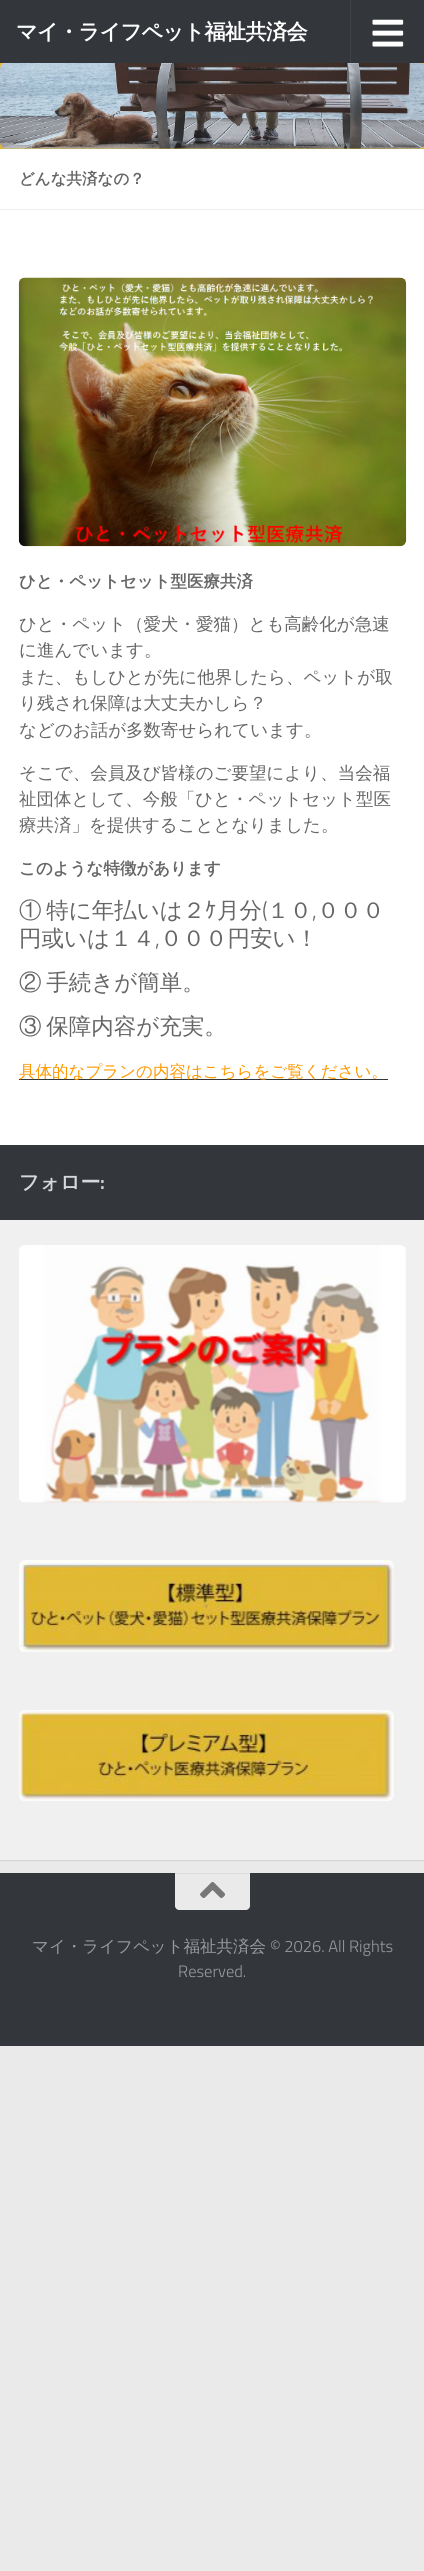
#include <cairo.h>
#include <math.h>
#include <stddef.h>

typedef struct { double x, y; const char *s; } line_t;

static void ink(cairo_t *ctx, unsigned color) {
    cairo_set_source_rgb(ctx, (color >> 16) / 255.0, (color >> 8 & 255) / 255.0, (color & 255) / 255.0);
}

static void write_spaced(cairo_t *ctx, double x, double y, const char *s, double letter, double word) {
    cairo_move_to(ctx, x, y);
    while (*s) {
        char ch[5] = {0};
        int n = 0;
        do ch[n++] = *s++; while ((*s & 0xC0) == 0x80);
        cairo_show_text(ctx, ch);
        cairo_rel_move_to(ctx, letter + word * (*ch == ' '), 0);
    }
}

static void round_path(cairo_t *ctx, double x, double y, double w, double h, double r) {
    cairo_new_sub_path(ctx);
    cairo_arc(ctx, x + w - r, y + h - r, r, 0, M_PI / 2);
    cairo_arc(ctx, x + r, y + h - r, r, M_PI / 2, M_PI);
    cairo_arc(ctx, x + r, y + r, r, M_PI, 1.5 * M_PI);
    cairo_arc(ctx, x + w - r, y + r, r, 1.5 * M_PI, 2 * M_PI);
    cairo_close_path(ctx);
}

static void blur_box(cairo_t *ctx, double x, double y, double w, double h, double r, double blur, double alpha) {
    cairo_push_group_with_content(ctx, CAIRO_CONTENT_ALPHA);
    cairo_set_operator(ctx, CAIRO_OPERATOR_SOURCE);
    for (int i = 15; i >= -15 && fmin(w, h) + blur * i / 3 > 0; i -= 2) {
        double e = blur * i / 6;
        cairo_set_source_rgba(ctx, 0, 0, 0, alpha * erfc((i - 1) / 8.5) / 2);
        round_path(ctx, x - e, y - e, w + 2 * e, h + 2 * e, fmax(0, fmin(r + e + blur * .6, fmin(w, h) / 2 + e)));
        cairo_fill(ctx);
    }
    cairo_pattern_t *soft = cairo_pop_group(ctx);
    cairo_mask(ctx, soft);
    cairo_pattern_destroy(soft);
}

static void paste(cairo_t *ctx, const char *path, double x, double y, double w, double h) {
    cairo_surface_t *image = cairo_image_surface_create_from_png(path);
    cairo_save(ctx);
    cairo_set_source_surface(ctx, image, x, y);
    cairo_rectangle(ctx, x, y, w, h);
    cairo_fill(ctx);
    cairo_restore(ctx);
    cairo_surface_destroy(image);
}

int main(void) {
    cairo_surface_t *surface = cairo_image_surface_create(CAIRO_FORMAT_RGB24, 424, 2571);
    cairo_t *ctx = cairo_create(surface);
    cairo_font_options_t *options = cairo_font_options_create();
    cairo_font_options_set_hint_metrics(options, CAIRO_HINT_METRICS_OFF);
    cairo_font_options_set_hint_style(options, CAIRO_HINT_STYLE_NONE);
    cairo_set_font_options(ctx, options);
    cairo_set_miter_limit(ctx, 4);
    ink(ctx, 0xEAEAEA);
    cairo_paint(ctx);
    ink(ctx, 0x000000);
    blur_box(ctx, 0, 150, 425, 1711, 0, 0.5, 0.1);
    ink(ctx, 0xE2BA34);
    cairo_rectangle(ctx, 0, 63, 424, 86);
    cairo_fill(ctx);
    ink(ctx, 0x33363B);
    cairo_rectangle(ctx, 0, 0, 424, 63);
    cairo_fill(ctx);
    cairo_select_font_face(ctx, "WenQuanYi Zen Hei", CAIRO_FONT_SLANT_NORMAL, CAIRO_FONT_WEIGHT_BOLD);
    cairo_set_font_size(ctx, 21.1);
    ink(ctx, 0xFFFFFF);
    write_spaced(ctx, 16, 39, "マイ・ライフペット福祉共済会", -0.6, 0);
    ink(ctx, 0x3F4247);
    cairo_rectangle(ctx, 350, 0, 1, 63);
    cairo_fill(ctx);
    paste(ctx, "media/1.png", 372, 19, 32, 28);
    paste(ctx, "media/2.png", 0, 63, 424, 86);
    ink(ctx, 0xFFFFFF);
    cairo_rectangle(ctx, 0, 149, 424, 996);
    cairo_fill(ctx);
    ink(ctx, 0xEEEEEE);
    cairo_rectangle(ctx, 0, 209, 424, 1);
    cairo_fill(ctx);
    cairo_set_font_size(ctx, 15.5);
    ink(ctx, 0x666666);
    cairo_move_to(ctx, 19, 184);
    cairo_show_text(ctx, "どんな共済なの？");
    paste(ctx, "media/3.png", 18, 277, 389, 270);
    cairo_set_font_size(ctx, 16.5);
    cairo_move_to(ctx, 19, 587);
    cairo_show_text(ctx, "ひと・ペットセット型医療共済");
    cairo_select_font_face(ctx, "WenQuanYi Zen Hei Medium", CAIRO_FONT_SLANT_NORMAL, CAIRO_FONT_WEIGHT_NORMAL);
    cairo_set_font_size(ctx, 17.5);
    {
        static const line_t items[] = {
            {19, 630, "ひと・ペット（愛犬・愛猫）とも高齢化が急速"},
            {19, 656, "に進んでいます。"},
            {19, 683, "また、もしひとが先に他界したら、ペットが取"},
            {19, 709, "り残され保障は大丈夫かしら？"},
            {19, 736, "などのお話が多数寄せられています。"},
            {19, 779, "そこで、会員及び皆様のご要望により、当会福"},
            {19, 805, "祉団体として、今般「ひと・ペットセット型医"},
            {19, 831, "療共済」を提供することとなりました。"},
        };
        for (size_t i = 0; i < sizeof items / sizeof *items; i++) {
            cairo_move_to(ctx, items[i].x, items[i].y);
            cairo_show_text(ctx, items[i].s);
        }
    }
    cairo_select_font_face(ctx, "WenQuanYi Zen Hei", CAIRO_FONT_SLANT_NORMAL, CAIRO_FONT_WEIGHT_BOLD);
    cairo_set_font_size(ctx, 16.5);
    cairo_move_to(ctx, 19, 874);
    cairo_show_text(ctx, "このような特徴があります");
    cairo_select_font_face(ctx, "WenQuanYi Zen Hei Medium", CAIRO_FONT_SLANT_NORMAL, CAIRO_FONT_WEIGHT_NORMAL);
    cairo_set_font_size(ctx, 22.5);
    write_spaced(ctx, 19, 918, "① 特に年払いは２", 0, -2);
    cairo_select_font_face(ctx, "IPAPGothic", CAIRO_FONT_SLANT_NORMAL, CAIRO_FONT_WEIGHT_NORMAL);
    cairo_move_to(ctx, 205, 918);
    cairo_show_text(ctx, "ｹ");
    cairo_select_font_face(ctx, "WenQuanYi Zen Hei Medium", CAIRO_FONT_SLANT_NORMAL, CAIRO_FONT_WEIGHT_NORMAL);
    cairo_move_to(ctx, 217, 918);
    cairo_show_text(ctx, "月分");
    cairo_select_font_face(ctx, "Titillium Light", CAIRO_FONT_SLANT_NORMAL, CAIRO_FONT_WEIGHT_NORMAL);
    cairo_move_to(ctx, 262, 918);
    cairo_show_text(ctx, "(");
    cairo_select_font_face(ctx, "WenQuanYi Zen Hei Medium", CAIRO_FONT_SLANT_NORMAL, CAIRO_FONT_WEIGHT_NORMAL);
    cairo_move_to(ctx, 267, 918);
    cairo_show_text(ctx, "１０");
    cairo_select_font_face(ctx, "Titillium Light", CAIRO_FONT_SLANT_NORMAL, CAIRO_FONT_WEIGHT_NORMAL);
    cairo_move_to(ctx, 312, 918);
    cairo_show_text(ctx, ",");
    cairo_select_font_face(ctx, "WenQuanYi Zen Hei Medium", CAIRO_FONT_SLANT_NORMAL, CAIRO_FONT_WEIGHT_NORMAL);
    cairo_move_to(ctx, 317, 918);
    cairo_show_text(ctx, "０００");
    cairo_move_to(ctx, 19, 946);
    cairo_show_text(ctx, "円或いは１４");
    cairo_select_font_face(ctx, "Titillium Light", CAIRO_FONT_SLANT_NORMAL, CAIRO_FONT_WEIGHT_NORMAL);
    cairo_move_to(ctx, 155, 946);
    cairo_show_text(ctx, ",");
    cairo_select_font_face(ctx, "WenQuanYi Zen Hei Medium", CAIRO_FONT_SLANT_NORMAL, CAIRO_FONT_WEIGHT_NORMAL);
    cairo_move_to(ctx, 160, 946);
    cairo_show_text(ctx, "０００円安い！");
    write_spaced(ctx, 19, 990, "② 手続きが簡単。", 0, -2);
    write_spaced(ctx, 19, 1034, "③ 保障内容が充実。", 0, -2);
    ink(ctx, 0x33363B);
    cairo_rectangle(ctx, 19, 1079, 369, 1);
    cairo_fill(ctx);
    cairo_set_font_size(ctx, 16.5);
    ink(ctx, 0xFF9900);
    cairo_move_to(ctx, 19, 1077);
    cairo_show_text(ctx, "具体的なプランの内容はこちらをご覧ください。");
    ink(ctx, 0xF0F0F0);
    cairo_rectangle(ctx, 0, 1220, 424, 640);
    cairo_fill(ctx);
    ink(ctx, 0x33363B);
    cairo_rectangle(ctx, 0, 1145, 424, 75);
    cairo_fill(ctx);
    cairo_select_font_face(ctx, "WenQuanYi Zen Hei", CAIRO_FONT_SLANT_NORMAL, CAIRO_FONT_WEIGHT_BOLD);
    cairo_set_font_size(ctx, 20);
    ink(ctx, 0xD6D7D8);
    cairo_move_to(ctx, 19, 1189);
    cairo_show_text(ctx, "フォロー");
    cairo_select_font_face(ctx, "Titillium SemiBold", CAIRO_FONT_SLANT_NORMAL, CAIRO_FONT_WEIGHT_NORMAL);
    cairo_move_to(ctx, 100, 1189);
    cairo_show_text(ctx, ":");
    paste(ctx, "media/4.png", 19, 1245, 387, 258);
    paste(ctx, "media/5.png", 19, 1560, 375, 92);
    paste(ctx, "media/6.png", 19, 1710, 375, 91);
    ink(ctx, 0x33363B);
    cairo_rectangle(ctx, 0, 1873, 424, 173);
    cairo_fill(ctx);
    ink(ctx, 0xEAEAEA);
    cairo_new_path(ctx);
    cairo_move_to(ctx, 175, 1873);
    cairo_line_to(ctx, 250, 1873);
    cairo_line_to(ctx, 250, 1906);
    cairo_curve_to(ctx, 250, 1908, 248, 1910, 246, 1910);
    cairo_line_to(ctx, 179, 1910);
    cairo_curve_to(ctx, 177, 1910, 175, 1908, 175, 1906);
    cairo_close_path(ctx);
    cairo_fill(ctx);
    ink(ctx, 0xDEDEDE);
    cairo_rectangle(ctx, 175, 1873, 75, 1);
    cairo_fill(ctx);
    paste(ctx, "media/7.png", 200, 1882, 25, 16);
    cairo_select_font_face(ctx, "WenQuanYi Zen Hei Medium", CAIRO_FONT_SLANT_NORMAL, CAIRO_FONT_WEIGHT_NORMAL);
    cairo_set_font_size(ctx, 16.5);
    ink(ctx, 0x999B9D);
    cairo_move_to(ctx, 32, 1952);
    cairo_show_text(ctx, "マイ・ライフペット福祉共済会");
    cairo_select_font_face(ctx, "Titillium Light", CAIRO_FONT_SLANT_NORMAL, CAIRO_FONT_WEIGHT_NORMAL);
    cairo_move_to(ctx, 270, 1952);
    cairo_show_text(ctx, "© 2026. All Rights");
    cairo_move_to(ctx, 178, 1977);
    cairo_show_text(ctx, "Reserved.");
    cairo_surface_write_to_png(surface, "image.png");
    cairo_font_options_destroy(options);
    cairo_destroy(ctx);
    cairo_surface_destroy(surface);
    return 0;
}
